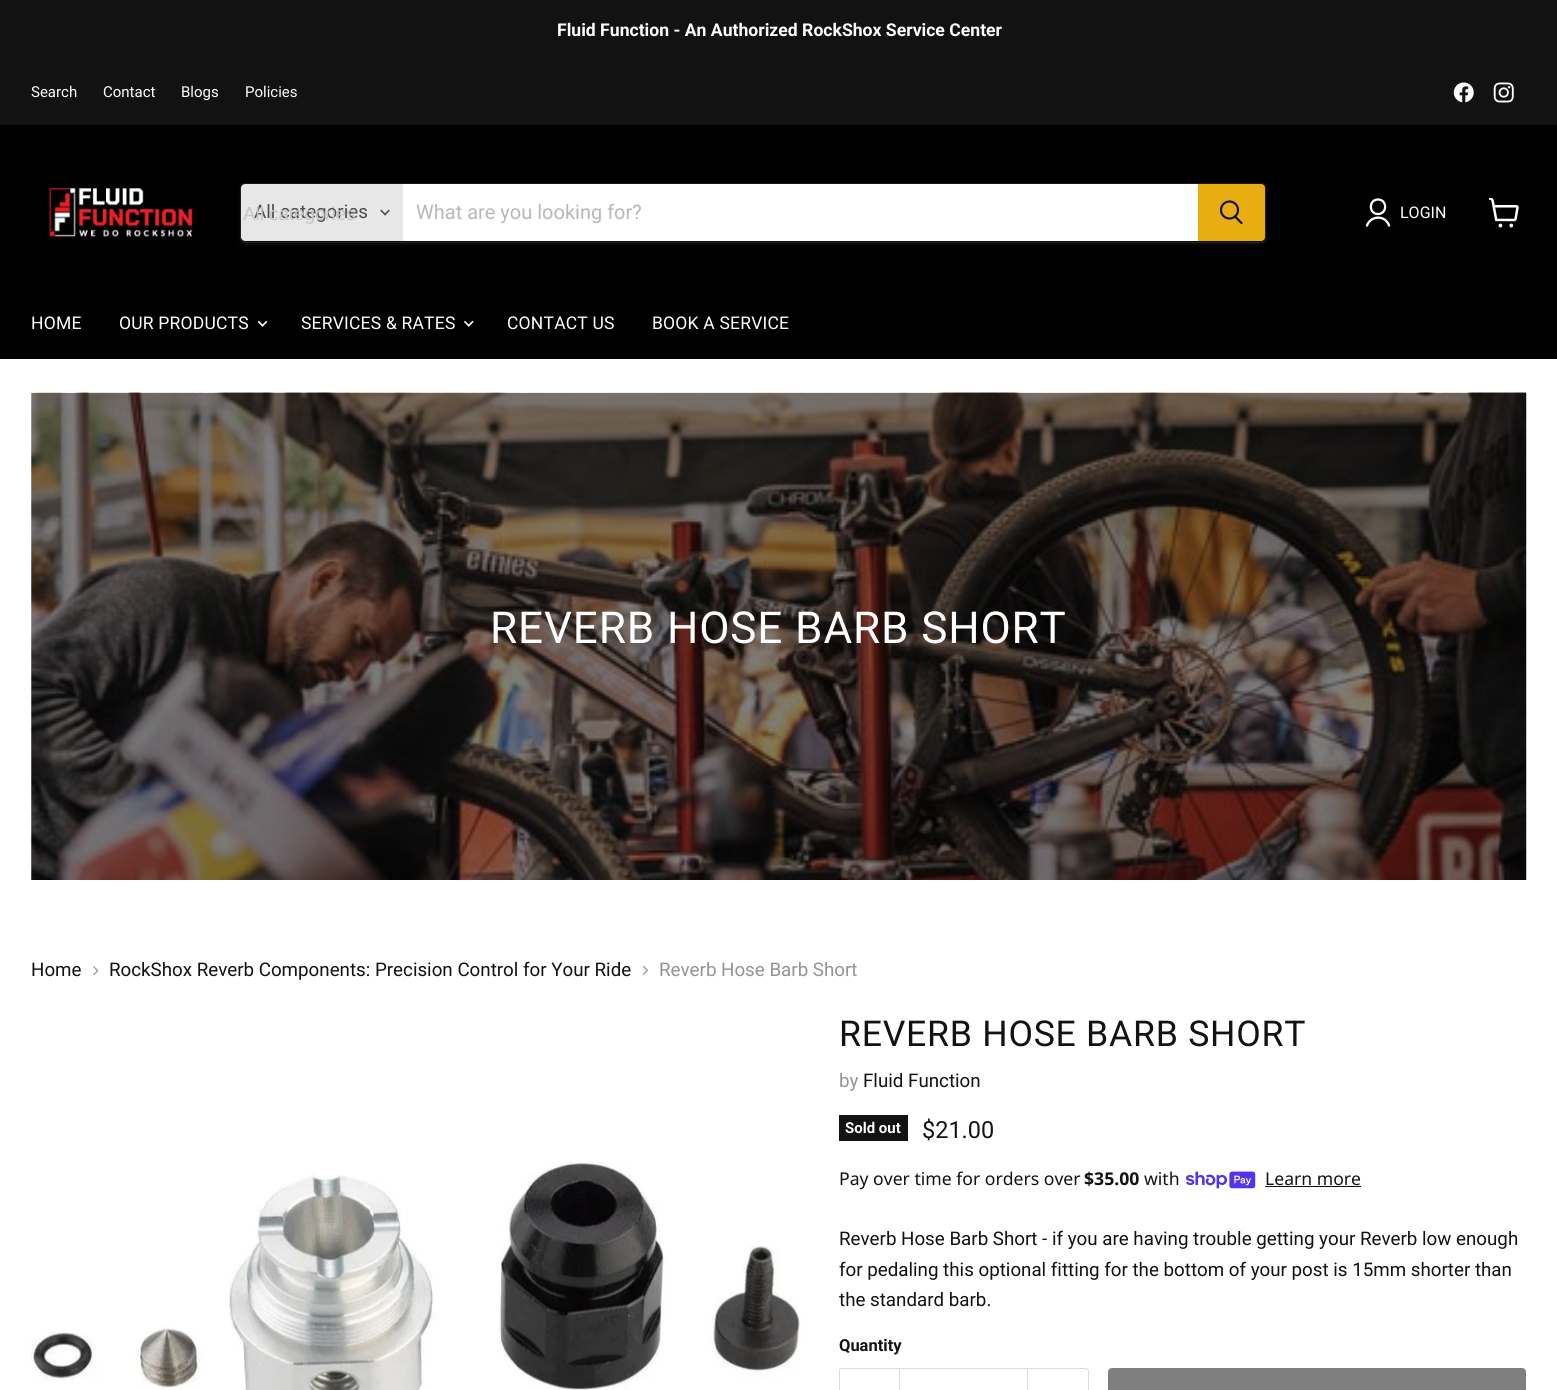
#include <cairo.h>
#include <math.h>
#include <stddef.h>

typedef struct { double x, y; const char *s; } line_t;

static void ink(cairo_t *ctx, unsigned color) {
    cairo_set_source_rgb(ctx, (color >> 16) / 255.0, (color >> 8 & 255) / 255.0, (color & 255) / 255.0);
}

static void write_spaced(cairo_t *ctx, double x, double y, const char *s, double letter, double word) {
    cairo_move_to(ctx, x, y);
    while (*s) {
        char ch[5] = {0};
        int n = 0;
        do ch[n++] = *s++; while ((*s & 0xC0) == 0x80);
        cairo_show_text(ctx, ch);
        cairo_rel_move_to(ctx, letter + word * (*ch == ' '), 0);
    }
}

static void round_path(cairo_t *ctx, double x, double y, double w, double h, double r) {
    cairo_new_sub_path(ctx);
    cairo_arc(ctx, x + w - r, y + h - r, r, 0, M_PI / 2);
    cairo_arc(ctx, x + r, y + h - r, r, M_PI / 2, M_PI);
    cairo_arc(ctx, x + r, y + r, r, M_PI, 1.5 * M_PI);
    cairo_arc(ctx, x + w - r, y + r, r, 1.5 * M_PI, 2 * M_PI);
    cairo_close_path(ctx);
}

static void blur_box(cairo_t *ctx, double x, double y, double w, double h, double r, double blur, double alpha) {
    cairo_push_group_with_content(ctx, CAIRO_CONTENT_ALPHA);
    cairo_set_operator(ctx, CAIRO_OPERATOR_SOURCE);
    for (int i = 15; i >= -15 && fmin(w, h) + blur * i / 3 > 0; i -= 2) {
        double e = blur * i / 6;
        cairo_set_source_rgba(ctx, 0, 0, 0, alpha * erfc((i - 1) / 8.5) / 2);
        round_path(ctx, x - e, y - e, w + 2 * e, h + 2 * e, fmax(0, fmin(r + e + blur * .6, fmin(w, h) / 2 + e)));
        cairo_fill(ctx);
    }
    cairo_pattern_t *soft = cairo_pop_group(ctx);
    cairo_mask(ctx, soft);
    cairo_pattern_destroy(soft);
}

static void paste(cairo_t *ctx, const char *path, double x, double y, double w, double h) {
    cairo_surface_t *image = cairo_image_surface_create_from_png(path);
    cairo_save(ctx);
    cairo_set_source_surface(ctx, image, x, y);
    cairo_rectangle(ctx, x, y, w, h);
    cairo_fill(ctx);
    cairo_restore(ctx);
    cairo_surface_destroy(image);
}

int main(void) {
    cairo_surface_t *surface = cairo_image_surface_create(CAIRO_FORMAT_RGB24, 1557, 1390);
    cairo_t *ctx = cairo_create(surface);
    cairo_font_options_t *options = cairo_font_options_create();
    cairo_font_options_set_hint_metrics(options, CAIRO_HINT_METRICS_OFF);
    cairo_font_options_set_hint_style(options, CAIRO_HINT_STYLE_NONE);
    cairo_set_font_options(ctx, options);
    cairo_set_miter_limit(ctx, 4);
    ink(ctx, 0xFFFFFF);
    cairo_paint(ctx);
    ink(ctx, 0x121212);
    cairo_rectangle(ctx, 0, 0, 1557, 125);
    cairo_fill(ctx);
    cairo_select_font_face(ctx, "Roboto", CAIRO_FONT_SLANT_NORMAL, CAIRO_FONT_WEIGHT_BOLD);
    cairo_set_font_size(ctx, 17.6);
    ink(ctx, 0xFFFFFF);
    cairo_move_to(ctx, 557, 36);
    cairo_show_text(ctx, "Fluid Function - An Authorized RockShox Service Center");
    cairo_select_font_face(ctx, "Roboto", CAIRO_FONT_SLANT_NORMAL, CAIRO_FONT_WEIGHT_NORMAL);
    cairo_set_font_size(ctx, 15);
    {
        static const line_t items[] = {
            {31, 97, "Search"},
            {103, 97, "Contact"},
            {181, 97, "Blogs"},
            {245, 97, "Policies"},
        };
        for (size_t i = 0; i < sizeof items / sizeof *items; i++) {
            cairo_move_to(ctx, items[i].x, items[i].y);
            cairo_show_text(ctx, items[i].s);
        }
    }
    paste(ctx, "media/1.png", 1453, 82, 21, 21);
    paste(ctx, "media/2.png", 1493, 82, 21, 21);
    ink(ctx, 0x000000);
    cairo_rectangle(ctx, 0, 125, 1557, 234);
    cairo_fill(ctx);
    paste(ctx, "media/3.png", 49, 188, 144, 50);
    ink(ctx, 0x808080);
    blur_box(ctx, 240, 185, 1026, 60, 5, 2, 0.11);
    round_path(ctx, 240.5, 183.5, 1025, 59, 4.5);
    cairo_set_source_rgba(ctx, 0.502, 0.502, 0.502, 0.2);
    cairo_set_line_width(ctx, 1);
    cairo_stroke(ctx);
    ink(ctx, 0xE7E7E7);
    cairo_new_path(ctx);
    cairo_move_to(ctx, 245, 184);
    cairo_line_to(ctx, 403, 184);
    cairo_line_to(ctx, 403, 241);
    cairo_line_to(ctx, 245, 241);
    cairo_curve_to(ctx, 243, 241, 241, 239, 241, 237);
    cairo_line_to(ctx, 241, 188);
    cairo_curve_to(ctx, 241, 186, 243, 184, 245, 184);
    cairo_close_path(ctx);
    cairo_fill(ctx);
    cairo_set_font_size(ctx, 18.75);
    ink(ctx, 0x4D4D4D);
    cairo_move_to(ctx, 254, 218);
    cairo_show_text(ctx, "All categories");
    cairo_select_font_face(ctx, "Liberation Sans", CAIRO_FONT_SLANT_NORMAL, CAIRO_FONT_WEIGHT_NORMAL);
    ink(ctx, 0xC6C6C6);
    cairo_move_to(ctx, 243, 220);
    cairo_show_text(ctx, "All categories");
    paste(ctx, "media/4.png", 380, 209, 10, 7);
    ink(ctx, 0xFFFFFF);
    cairo_rectangle(ctx, 403, 184, 795, 57);
    cairo_fill(ctx);
    cairo_select_font_face(ctx, "Roboto", CAIRO_FONT_SLANT_NORMAL, CAIRO_FONT_WEIGHT_NORMAL);
    cairo_set_font_size(ctx, 20);
    ink(ctx, 0xB8B8B8);
    cairo_move_to(ctx, 416, 219);
    cairo_show_text(ctx, "What are you looking for?");
    ink(ctx, 0xE9AD14);
    cairo_new_path(ctx);
    cairo_move_to(ctx, 1198.5, 184.5);
    cairo_line_to(ctx, 1261, 184.5);
    cairo_curve_to(ctx, 1263, 184.5, 1264.5, 186, 1264.5, 188);
    cairo_line_to(ctx, 1264.5, 237);
    cairo_curve_to(ctx, 1264.5, 239, 1263, 240.5, 1261, 240.5);
    cairo_line_to(ctx, 1198.5, 240.5);
    cairo_close_path(ctx);
    cairo_fill_preserve(ctx);
    cairo_stroke(ctx);
    cairo_new_path(ctx);
    cairo_move_to(ctx, 1241.5, 223);
    cairo_line_to(ctx, 1235.5, 217);
    ink(ctx, 0x121212);
    cairo_set_line_width(ctx, 2.2);
    cairo_set_line_cap(ctx, CAIRO_LINE_CAP_ROUND);
    cairo_stroke(ctx);
    cairo_arc(ctx, 1229.5, 210, 8.5, 0, 2 * M_PI);
    cairo_set_line_cap(ctx, CAIRO_LINE_CAP_BUTT);
    cairo_stroke(ctx);
    cairo_new_path(ctx);
    cairo_move_to(ctx, 1378, 214);
    cairo_curve_to(ctx, 1387.5, 214, 1387.5, 199.5, 1378, 199.5);
    cairo_curve_to(ctx, 1368.5, 199.5, 1368.5, 214, 1378, 214);
    cairo_close_path(ctx);
    cairo_move_to(ctx, 1389, 225.5);
    cairo_curve_to(ctx, 1385.5, 215, 1371, 215, 1367, 225.5);
    ink(ctx, 0xFFFFFF);
    cairo_set_line_width(ctx, 2.3);
    cairo_set_line_cap(ctx, CAIRO_LINE_CAP_ROUND);
    cairo_set_line_join(ctx, CAIRO_LINE_JOIN_ROUND);
    cairo_stroke(ctx);
    cairo_set_font_size(ctx, 16);
    cairo_move_to(ctx, 1400, 218);
    cairo_show_text(ctx, "LOGIN");
    paste(ctx, "media/5.png", 1489, 198, 30, 30);
    cairo_set_font_size(ctx, 17.5);
    write_spaced(ctx, 31, 329, "HOME", 0.2, 0);
    write_spaced(ctx, 119, 329, "OUR PRODUCTS", 0.2, 0);
    paste(ctx, "media/6.png", 258, 320, 10, 7);
    write_spaced(ctx, 301, 329, "SERVICES & RATES", 0.2, 0);
    paste(ctx, "media/7.png", 464, 320, 10, 7);
    write_spaced(ctx, 507, 329, "CONTACT US", 0.2, 0);
    write_spaced(ctx, 652, 329, "BOOK A SERVICE", 0.2, 0);
    paste(ctx, "media/8.png", 31, 392, 1496, 488);
    cairo_set_font_size(ctx, 44);
    write_spaced(ctx, 490, 643, "REVERB HOSE BARB SHORT", 0.9, 0);
    cairo_set_font_size(ctx, 18.75);
    ink(ctx, 0x121212);
    cairo_move_to(ctx, 31, 976);
    cairo_show_text(ctx, "Home");
    paste(ctx, "media/9.png", 93, 966, 6, 9);
    cairo_move_to(ctx, 109, 976);
    cairo_show_text(ctx, "RockShox Reverb Components: Precision Control for Your Ride");
    paste(ctx, "media/10.png", 642, 965, 6, 10);
    ink(ctx, 0x949494);
    cairo_move_to(ctx, 659, 976);
    cairo_show_text(ctx, "Reverb Hose Barb Short");
    paste(ctx, "media/11.png", 31, 1161, 770, 229);
    cairo_set_font_size(ctx, 35.6);
    ink(ctx, 0x121212);
    write_spaced(ctx, 839, 1046, "REVERB HOSE BARB SHORT", 0.75, 0);
    cairo_set_font_size(ctx, 18.75);
    ink(ctx, 0x949494);
    cairo_move_to(ctx, 839, 1087);
    cairo_show_text(ctx, "by");
    ink(ctx, 0x121212);
    cairo_move_to(ctx, 863, 1087);
    cairo_show_text(ctx, "Fluid Function");
    cairo_rectangle(ctx, 839, 1115, 69, 26);
    cairo_fill(ctx);
    cairo_select_font_face(ctx, "Roboto", CAIRO_FONT_SLANT_NORMAL, CAIRO_FONT_WEIGHT_BOLD);
    cairo_set_font_size(ctx, 15);
    ink(ctx, 0xFFFFFF);
    cairo_move_to(ctx, 845, 1133);
    cairo_show_text(ctx, "Sold out");
    cairo_select_font_face(ctx, "Roboto", CAIRO_FONT_SLANT_NORMAL, CAIRO_FONT_WEIGHT_NORMAL);
    cairo_set_font_size(ctx, 23.5);
    ink(ctx, 0x121212);
    cairo_move_to(ctx, 922, 1138);
    cairo_show_text(ctx, "$21.00");
    cairo_select_font_face(ctx, "Noto Sans", CAIRO_FONT_SLANT_NORMAL, CAIRO_FONT_WEIGHT_NORMAL);
    cairo_set_font_size(ctx, 17.6);
    cairo_move_to(ctx, 839, 1185);
    cairo_show_text(ctx, "Pay over time for orders over");
    cairo_select_font_face(ctx, "Noto Sans", CAIRO_FONT_SLANT_NORMAL, CAIRO_FONT_WEIGHT_BOLD);
    cairo_move_to(ctx, 1084, 1185);
    cairo_show_text(ctx, "$35.00");
    cairo_select_font_face(ctx, "Noto Sans", CAIRO_FONT_SLANT_NORMAL, CAIRO_FONT_WEIGHT_NORMAL);
    cairo_move_to(ctx, 1144, 1185);
    cairo_show_text(ctx, "with");
    paste(ctx, "media/12.png", 1186, 1171, 70, 18);
    cairo_move_to(ctx, 1265, 1185);
    cairo_show_text(ctx, "Learn more");
    cairo_rectangle(ctx, 1265, 1186, 96, 1);
    cairo_fill(ctx);
    cairo_select_font_face(ctx, "Roboto", CAIRO_FONT_SLANT_NORMAL, CAIRO_FONT_WEIGHT_NORMAL);
    cairo_set_font_size(ctx, 18.75);
    {
        static const line_t items[] = {
            {839, 1245, "Reverb Hose Barb Short - if you are having trouble getting your Reverb low enough"},
            {839, 1276, "for pedaling this optional fitting for the bottom of your post is 15mm shorter than"},
            {839, 1306, "the standard barb."},
        };
        for (size_t i = 0; i < sizeof items / sizeof *items; i++) {
            cairo_move_to(ctx, items[i].x, items[i].y);
            cairo_show_text(ctx, items[i].s);
        }
    }
    cairo_select_font_face(ctx, "Roboto", CAIRO_FONT_SLANT_NORMAL, CAIRO_FONT_WEIGHT_BOLD);
    cairo_set_font_size(ctx, 16.5);
    cairo_move_to(ctx, 839, 1351);
    cairo_show_text(ctx, "Quantity");
    ink(ctx, 0xDDDDDD);
    cairo_set_fill_rule(ctx, CAIRO_FILL_RULE_EVEN_ODD);
    cairo_new_path(ctx);
    cairo_move_to(ctx, 842, 1368);
    cairo_line_to(ctx, 899, 1368);
    cairo_line_to(ctx, 899, 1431);
    cairo_line_to(ctx, 842, 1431);
    cairo_curve_to(ctx, 840, 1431, 839, 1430, 839, 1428);
    cairo_line_to(ctx, 839, 1371);
    cairo_curve_to(ctx, 839, 1369, 840, 1368, 842, 1368);
    cairo_close_path(ctx);
    cairo_move_to(ctx, 842, 1369);
    cairo_line_to(ctx, 899, 1369);
    cairo_line_to(ctx, 899, 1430);
    cairo_line_to(ctx, 842, 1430);
    cairo_curve_to(ctx, 841, 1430, 840, 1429, 840, 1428);
    cairo_line_to(ctx, 840, 1371);
    cairo_curve_to(ctx, 840, 1370, 841, 1369, 842, 1369);
    cairo_close_path(ctx);
    cairo_fill(ctx);
    cairo_rectangle(ctx, 899.5, 1368.5, 128, 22);
    cairo_set_line_width(ctx, 1);
    cairo_set_line_cap(ctx, CAIRO_LINE_CAP_BUTT);
    cairo_set_line_join(ctx, CAIRO_LINE_JOIN_MITER);
    cairo_stroke(ctx);
    cairo_new_path(ctx);
    cairo_move_to(ctx, 1028, 1368);
    cairo_line_to(ctx, 1085, 1368);
    cairo_curve_to(ctx, 1087, 1368, 1089, 1369, 1089, 1371);
    cairo_line_to(ctx, 1089, 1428);
    cairo_curve_to(ctx, 1089, 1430, 1087, 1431, 1085, 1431);
    cairo_line_to(ctx, 1028, 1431);
    cairo_close_path(ctx);
    cairo_move_to(ctx, 1028, 1369);
    cairo_line_to(ctx, 1085, 1369);
    cairo_curve_to(ctx, 1086, 1369, 1088, 1370, 1088, 1371);
    cairo_line_to(ctx, 1088, 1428);
    cairo_curve_to(ctx, 1088, 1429, 1086, 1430, 1085, 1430);
    cairo_line_to(ctx, 1028, 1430);
    cairo_close_path(ctx);
    cairo_fill(ctx);
    ink(ctx, 0x7F7F7F);
    round_path(ctx, 1108.5, 1368.5, 417, 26, 3.5);
    cairo_fill_preserve(ctx);
    cairo_stroke(ctx);
    cairo_surface_write_to_png(surface, "image.png");
    cairo_font_options_destroy(options);
    cairo_destroy(ctx);
    cairo_surface_destroy(surface);
    return 0;
}
